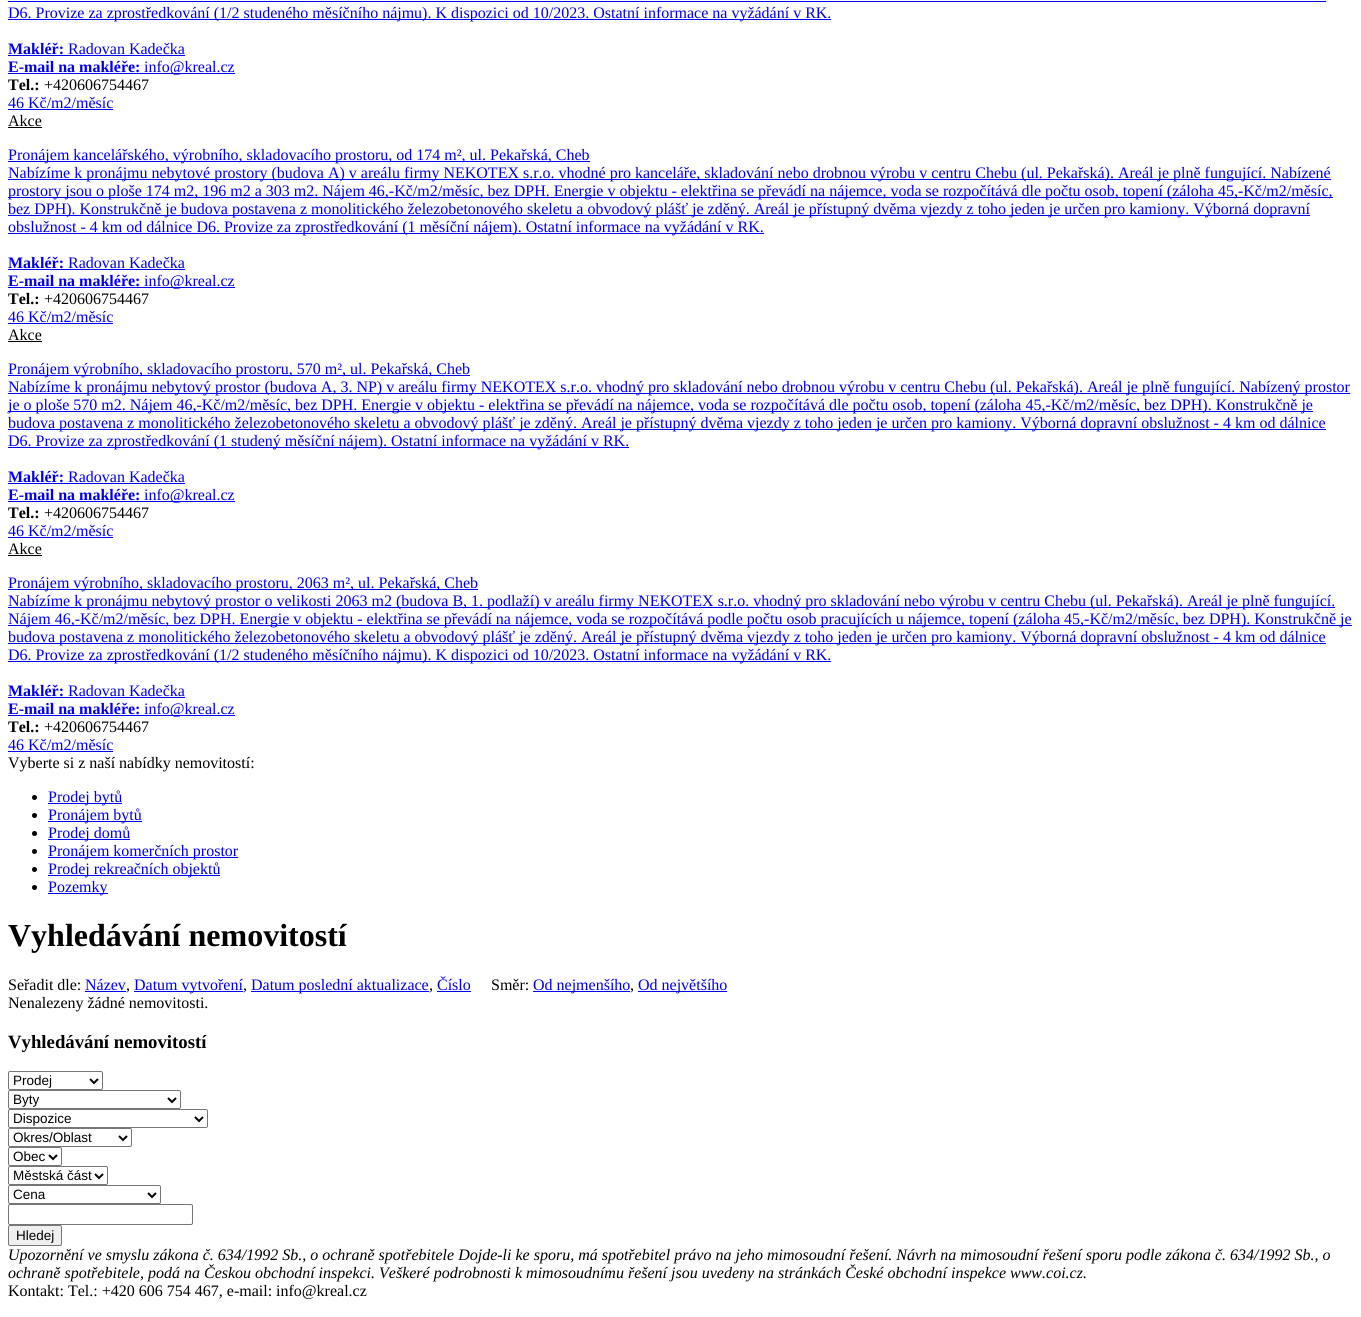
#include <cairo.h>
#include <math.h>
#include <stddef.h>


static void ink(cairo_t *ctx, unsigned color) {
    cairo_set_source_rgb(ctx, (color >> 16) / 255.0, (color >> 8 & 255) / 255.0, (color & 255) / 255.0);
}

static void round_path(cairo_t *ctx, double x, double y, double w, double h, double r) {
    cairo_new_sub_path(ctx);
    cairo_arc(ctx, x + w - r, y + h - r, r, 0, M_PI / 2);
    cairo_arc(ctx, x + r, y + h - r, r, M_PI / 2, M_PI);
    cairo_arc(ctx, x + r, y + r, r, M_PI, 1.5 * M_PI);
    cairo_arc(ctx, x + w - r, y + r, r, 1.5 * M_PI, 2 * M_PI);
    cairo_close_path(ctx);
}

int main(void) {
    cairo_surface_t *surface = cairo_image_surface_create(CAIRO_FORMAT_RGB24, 1361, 1317);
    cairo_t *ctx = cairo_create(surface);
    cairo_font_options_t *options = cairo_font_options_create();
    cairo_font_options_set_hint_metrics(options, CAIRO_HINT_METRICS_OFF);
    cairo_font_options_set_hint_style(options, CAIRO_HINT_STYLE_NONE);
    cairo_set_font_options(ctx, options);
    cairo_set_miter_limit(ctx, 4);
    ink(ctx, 0xFFFFFF);
    cairo_paint(ctx);
    ink(ctx, 0x0000EE);
    cairo_rectangle(ctx, 8, 19, 823, 1);
    cairo_fill(ctx);
    cairo_select_font_face(ctx, "Liberation Serif", CAIRO_FONT_SLANT_NORMAL, CAIRO_FONT_WEIGHT_NORMAL);
    cairo_set_font_size(ctx, 16);
    cairo_move_to(ctx, 8, 18);
    cairo_show_text(ctx, "D6. Provize za zprostředkování (1/2 studeného měsíčního nájmu). K dispozici od 10/2023. Ostatní informace na vyžádání v RK.");
    cairo_rectangle(ctx, 8, 1, 1318, 1);
    cairo_fill(ctx);
    cairo_select_font_face(ctx, "Liberation Serif", CAIRO_FONT_SLANT_NORMAL, CAIRO_FONT_WEIGHT_BOLD);
    cairo_move_to(ctx, 8, 54);
    cairo_show_text(ctx, "Makléř:");
    cairo_rectangle(ctx, 8, 55, 177, 1);
    cairo_fill(ctx);
    cairo_select_font_face(ctx, "Liberation Serif", CAIRO_FONT_SLANT_NORMAL, CAIRO_FONT_WEIGHT_NORMAL);
    cairo_move_to(ctx, 68, 54);
    cairo_show_text(ctx, "Radovan Kadečka");
    cairo_select_font_face(ctx, "Liberation Serif", CAIRO_FONT_SLANT_NORMAL, CAIRO_FONT_WEIGHT_BOLD);
    cairo_move_to(ctx, 8, 72);
    cairo_show_text(ctx, "E-mail na makléře:");
    cairo_rectangle(ctx, 8, 73, 227, 1);
    cairo_fill(ctx);
    cairo_select_font_face(ctx, "Liberation Serif", CAIRO_FONT_SLANT_NORMAL, CAIRO_FONT_WEIGHT_NORMAL);
    cairo_move_to(ctx, 144, 72);
    cairo_show_text(ctx, "info@kreal.cz");
    cairo_select_font_face(ctx, "Liberation Serif", CAIRO_FONT_SLANT_NORMAL, CAIRO_FONT_WEIGHT_BOLD);
    ink(ctx, 0x000000);
    cairo_move_to(ctx, 8, 90);
    cairo_show_text(ctx, "Tel.:");
    cairo_select_font_face(ctx, "Liberation Serif", CAIRO_FONT_SLANT_NORMAL, CAIRO_FONT_WEIGHT_NORMAL);
    cairo_move_to(ctx, 44, 90);
    cairo_show_text(ctx, "+420606754467");
    ink(ctx, 0x0000EE);
    cairo_move_to(ctx, 8, 108);
    cairo_show_text(ctx, "46 Kč/m2/měsíc");
    cairo_rectangle(ctx, 8, 109, 105, 1);
    cairo_fill(ctx);
    ink(ctx, 0x000000);
    cairo_move_to(ctx, 8, 126);
    cairo_show_text(ctx, "Akce");
    cairo_rectangle(ctx, 8, 127, 34, 1);
    cairo_fill(ctx);
    ink(ctx, 0x0000EE);
    cairo_rectangle(ctx, 8, 161, 582, 1);
    cairo_fill(ctx);
    cairo_move_to(ctx, 8, 160);
    cairo_show_text(ctx, "Pronájem kancelářského, výrobního, skladovacího prostoru, od 174 m², ul. Pekařská, Cheb");
    cairo_rectangle(ctx, 8, 179, 1323, 1);
    cairo_fill(ctx);
    cairo_move_to(ctx, 8, 178);
    cairo_show_text(ctx, "Nabízíme k pronájmu nebytové prostory (budova A) v areálu firmy NEKOTEX s.r.o. vhodné pro kanceláře, skladování nebo drobnou výrobu v centru Chebu (ul. Pekařská). Areál je plně fungující. Nabízené");
    cairo_rectangle(ctx, 8, 197, 1325, 1);
    cairo_fill(ctx);
    cairo_move_to(ctx, 8, 196);
    cairo_show_text(ctx, "prostory jsou o ploše 174 m2, 196 m2 a 303 m2. Nájem 46,-Kč/m2/měsíc, bez DPH. Energie v objektu - elektřina se převádí na nájemce, voda se rozpočítává dle počtu osob, topení (záloha 45,-Kč/m2/měsíc,");
    cairo_rectangle(ctx, 8, 215, 1302, 1);
    cairo_fill(ctx);
    cairo_move_to(ctx, 8, 214);
    cairo_show_text(ctx, "bez DPH). Konstrukčně je budova postavena z monolitického železobetonového skeletu a obvodový plášť je zděný. Areál je přístupný dvěma vjezdy z toho jeden je určen pro kamiony. Výborná dopravní");
    cairo_rectangle(ctx, 8, 233, 756, 1);
    cairo_fill(ctx);
    cairo_move_to(ctx, 8, 232);
    cairo_show_text(ctx, "obslužnost - 4 km od dálnice D6. Provize za zprostředkování (1 měsíční nájem). Ostatní informace na vyžádání v RK.");
    cairo_select_font_face(ctx, "Liberation Serif", CAIRO_FONT_SLANT_NORMAL, CAIRO_FONT_WEIGHT_BOLD);
    cairo_move_to(ctx, 8, 268);
    cairo_show_text(ctx, "Makléř:");
    cairo_rectangle(ctx, 8, 269, 177, 1);
    cairo_fill(ctx);
    cairo_select_font_face(ctx, "Liberation Serif", CAIRO_FONT_SLANT_NORMAL, CAIRO_FONT_WEIGHT_NORMAL);
    cairo_move_to(ctx, 68, 268);
    cairo_show_text(ctx, "Radovan Kadečka");
    cairo_select_font_face(ctx, "Liberation Serif", CAIRO_FONT_SLANT_NORMAL, CAIRO_FONT_WEIGHT_BOLD);
    cairo_move_to(ctx, 8, 286);
    cairo_show_text(ctx, "E-mail na makléře:");
    cairo_rectangle(ctx, 8, 287, 227, 1);
    cairo_fill(ctx);
    cairo_select_font_face(ctx, "Liberation Serif", CAIRO_FONT_SLANT_NORMAL, CAIRO_FONT_WEIGHT_NORMAL);
    cairo_move_to(ctx, 144, 286);
    cairo_show_text(ctx, "info@kreal.cz");
    cairo_select_font_face(ctx, "Liberation Serif", CAIRO_FONT_SLANT_NORMAL, CAIRO_FONT_WEIGHT_BOLD);
    ink(ctx, 0x000000);
    cairo_move_to(ctx, 8, 304);
    cairo_show_text(ctx, "Tel.:");
    cairo_select_font_face(ctx, "Liberation Serif", CAIRO_FONT_SLANT_NORMAL, CAIRO_FONT_WEIGHT_NORMAL);
    cairo_move_to(ctx, 44, 304);
    cairo_show_text(ctx, "+420606754467");
    ink(ctx, 0x0000EE);
    cairo_move_to(ctx, 8, 322);
    cairo_show_text(ctx, "46 Kč/m2/měsíc");
    cairo_rectangle(ctx, 8, 323, 105, 1);
    cairo_fill(ctx);
    ink(ctx, 0x000000);
    cairo_move_to(ctx, 8, 340);
    cairo_show_text(ctx, "Akce");
    cairo_rectangle(ctx, 8, 341, 34, 1);
    cairo_fill(ctx);
    ink(ctx, 0x0000EE);
    cairo_rectangle(ctx, 8, 375, 462, 1);
    cairo_fill(ctx);
    cairo_move_to(ctx, 8, 374);
    cairo_show_text(ctx, "Pronájem výrobního, skladovacího prostoru, 570 m², ul. Pekařská, Cheb");
    cairo_rectangle(ctx, 8, 393, 1342, 1);
    cairo_fill(ctx);
    cairo_move_to(ctx, 8, 392);
    cairo_show_text(ctx, "Nabízíme k pronájmu nebytový prostor (budova A, 3. NP) v areálu firmy NEKOTEX s.r.o. vhodný pro skladování nebo drobnou výrobu v centru Chebu (ul. Pekařská). Areál je plně fungující. Nabízený prostor");
    cairo_rectangle(ctx, 8, 411, 1305, 1);
    cairo_fill(ctx);
    cairo_move_to(ctx, 8, 410);
    cairo_show_text(ctx, "je o ploše 570 m2. Nájem 46,-Kč/m2/měsíc, bez DPH. Energie v objektu - elektřina se převádí na nájemce, voda se rozpočítává dle počtu osob, topení (záloha 45,-Kč/m2/měsíc, bez DPH). Konstrukčně je");
    cairo_rectangle(ctx, 8, 429, 1318, 1);
    cairo_fill(ctx);
    cairo_move_to(ctx, 8, 428);
    cairo_show_text(ctx, "budova postavena z monolitického železobetonového skeletu a obvodový plášť je zděný. Areál je přístupný dvěma vjezdy z toho jeden je určen pro kamiony. Výborná dopravní obslužnost - 4 km od dálnice");
    cairo_rectangle(ctx, 8, 447, 621, 1);
    cairo_fill(ctx);
    cairo_move_to(ctx, 8, 446);
    cairo_show_text(ctx, "D6. Provize za zprostředkování (1 studený měsíční nájem). Ostatní informace na vyžádání v RK.");
    cairo_select_font_face(ctx, "Liberation Serif", CAIRO_FONT_SLANT_NORMAL, CAIRO_FONT_WEIGHT_BOLD);
    cairo_move_to(ctx, 8, 482);
    cairo_show_text(ctx, "Makléř:");
    cairo_rectangle(ctx, 8, 483, 177, 1);
    cairo_fill(ctx);
    cairo_select_font_face(ctx, "Liberation Serif", CAIRO_FONT_SLANT_NORMAL, CAIRO_FONT_WEIGHT_NORMAL);
    cairo_move_to(ctx, 68, 482);
    cairo_show_text(ctx, "Radovan Kadečka");
    cairo_select_font_face(ctx, "Liberation Serif", CAIRO_FONT_SLANT_NORMAL, CAIRO_FONT_WEIGHT_BOLD);
    cairo_move_to(ctx, 8, 500);
    cairo_show_text(ctx, "E-mail na makléře:");
    cairo_rectangle(ctx, 8, 501, 227, 1);
    cairo_fill(ctx);
    cairo_select_font_face(ctx, "Liberation Serif", CAIRO_FONT_SLANT_NORMAL, CAIRO_FONT_WEIGHT_NORMAL);
    cairo_move_to(ctx, 144, 500);
    cairo_show_text(ctx, "info@kreal.cz");
    cairo_select_font_face(ctx, "Liberation Serif", CAIRO_FONT_SLANT_NORMAL, CAIRO_FONT_WEIGHT_BOLD);
    ink(ctx, 0x000000);
    cairo_move_to(ctx, 8, 518);
    cairo_show_text(ctx, "Tel.:");
    cairo_select_font_face(ctx, "Liberation Serif", CAIRO_FONT_SLANT_NORMAL, CAIRO_FONT_WEIGHT_NORMAL);
    cairo_move_to(ctx, 44, 518);
    cairo_show_text(ctx, "+420606754467");
    ink(ctx, 0x0000EE);
    cairo_move_to(ctx, 8, 536);
    cairo_show_text(ctx, "46 Kč/m2/měsíc");
    cairo_rectangle(ctx, 8, 537, 105, 1);
    cairo_fill(ctx);
    ink(ctx, 0x000000);
    cairo_move_to(ctx, 8, 554);
    cairo_show_text(ctx, "Akce");
    cairo_rectangle(ctx, 8, 555, 34, 1);
    cairo_fill(ctx);
    ink(ctx, 0x0000EE);
    cairo_rectangle(ctx, 8, 589, 470, 1);
    cairo_fill(ctx);
    cairo_move_to(ctx, 8, 588);
    cairo_show_text(ctx, "Pronájem výrobního, skladovacího prostoru, 2063 m², ul. Pekařská, Cheb");
    cairo_rectangle(ctx, 8, 607, 1327, 1);
    cairo_fill(ctx);
    cairo_move_to(ctx, 8, 606);
    cairo_show_text(ctx, "Nabízíme k pronájmu nebytový prostor o velikosti 2063 m2 (budova B, 1. podlaží) v areálu firmy NEKOTEX s.r.o. vhodný pro skladování nebo výrobu v centru Chebu (ul. Pekařská). Areál je plně fungující.");
    cairo_rectangle(ctx, 8, 625, 1344, 1);
    cairo_fill(ctx);
    cairo_move_to(ctx, 8, 624);
    cairo_show_text(ctx, "Nájem 46,-Kč/m2/měsíc, bez DPH. Energie v objektu - elektřina se převádí na nájemce, voda se rozpočítává podle počtu osob pracujících u nájemce, topení (záloha 45,-Kč/m2/měsíc, bez DPH). Konstrukčně je");
    cairo_rectangle(ctx, 8, 643, 1318, 1);
    cairo_fill(ctx);
    cairo_move_to(ctx, 8, 642);
    cairo_show_text(ctx, "budova postavena z monolitického železobetonového skeletu a obvodový plášť je zděný. Areál je přístupný dvěma vjezdy z toho jeden je určen pro kamiony. Výborná dopravní obslužnost - 4 km od dálnice");
    cairo_rectangle(ctx, 8, 661, 823, 1);
    cairo_fill(ctx);
    cairo_move_to(ctx, 8, 660);
    cairo_show_text(ctx, "D6. Provize za zprostředkování (1/2 studeného měsíčního nájmu). K dispozici od 10/2023. Ostatní informace na vyžádání v RK.");
    cairo_select_font_face(ctx, "Liberation Serif", CAIRO_FONT_SLANT_NORMAL, CAIRO_FONT_WEIGHT_BOLD);
    cairo_move_to(ctx, 8, 696);
    cairo_show_text(ctx, "Makléř:");
    cairo_rectangle(ctx, 8, 697, 177, 1);
    cairo_fill(ctx);
    cairo_select_font_face(ctx, "Liberation Serif", CAIRO_FONT_SLANT_NORMAL, CAIRO_FONT_WEIGHT_NORMAL);
    cairo_move_to(ctx, 68, 696);
    cairo_show_text(ctx, "Radovan Kadečka");
    cairo_select_font_face(ctx, "Liberation Serif", CAIRO_FONT_SLANT_NORMAL, CAIRO_FONT_WEIGHT_BOLD);
    cairo_move_to(ctx, 8, 714);
    cairo_show_text(ctx, "E-mail na makléře:");
    cairo_rectangle(ctx, 8, 715, 227, 1);
    cairo_fill(ctx);
    cairo_select_font_face(ctx, "Liberation Serif", CAIRO_FONT_SLANT_NORMAL, CAIRO_FONT_WEIGHT_NORMAL);
    cairo_move_to(ctx, 144, 714);
    cairo_show_text(ctx, "info@kreal.cz");
    cairo_select_font_face(ctx, "Liberation Serif", CAIRO_FONT_SLANT_NORMAL, CAIRO_FONT_WEIGHT_BOLD);
    ink(ctx, 0x000000);
    cairo_move_to(ctx, 8, 732);
    cairo_show_text(ctx, "Tel.:");
    cairo_select_font_face(ctx, "Liberation Serif", CAIRO_FONT_SLANT_NORMAL, CAIRO_FONT_WEIGHT_NORMAL);
    cairo_move_to(ctx, 44, 732);
    cairo_show_text(ctx, "+420606754467");
    ink(ctx, 0x0000EE);
    cairo_move_to(ctx, 8, 750);
    cairo_show_text(ctx, "46 Kč/m2/měsíc");
    cairo_rectangle(ctx, 8, 751, 105, 1);
    cairo_fill(ctx);
    ink(ctx, 0x000000);
    cairo_move_to(ctx, 8, 768);
    cairo_show_text(ctx, "Vyberte si z naší nabídky nemovitostí:");
    cairo_new_path(ctx);
    cairo_arc(ctx, 34.5, 797.5, 2.5, 0, 2 * M_PI);
    cairo_fill(ctx);
    ink(ctx, 0x0000EE);
    cairo_rectangle(ctx, 48, 803, 74, 1);
    cairo_fill(ctx);
    cairo_move_to(ctx, 48, 802);
    cairo_show_text(ctx, "Prodej bytů");
    ink(ctx, 0x000000);
    cairo_new_path(ctx);
    cairo_arc(ctx, 34.5, 815.5, 2.5, 0, 2 * M_PI);
    cairo_fill(ctx);
    ink(ctx, 0x0000EE);
    cairo_rectangle(ctx, 48, 821, 94, 1);
    cairo_fill(ctx);
    cairo_move_to(ctx, 48, 820);
    cairo_show_text(ctx, "Pronájem bytů");
    ink(ctx, 0x000000);
    cairo_new_path(ctx);
    cairo_arc(ctx, 34.5, 833.5, 2.5, 0, 2 * M_PI);
    cairo_fill(ctx);
    ink(ctx, 0x0000EE);
    cairo_rectangle(ctx, 48, 839, 82, 1);
    cairo_fill(ctx);
    cairo_move_to(ctx, 48, 838);
    cairo_show_text(ctx, "Prodej domů");
    ink(ctx, 0x000000);
    cairo_new_path(ctx);
    cairo_arc(ctx, 34.5, 851.5, 2.5, 0, 2 * M_PI);
    cairo_fill(ctx);
    ink(ctx, 0x0000EE);
    cairo_rectangle(ctx, 48, 857, 190, 1);
    cairo_fill(ctx);
    cairo_move_to(ctx, 48, 856);
    cairo_show_text(ctx, "Pronájem komerčních prostor");
    ink(ctx, 0x000000);
    cairo_new_path(ctx);
    cairo_arc(ctx, 34.5, 869.5, 2.5, 0, 2 * M_PI);
    cairo_fill(ctx);
    ink(ctx, 0x0000EE);
    cairo_rectangle(ctx, 48, 875, 172, 1);
    cairo_fill(ctx);
    cairo_move_to(ctx, 48, 874);
    cairo_show_text(ctx, "Prodej rekreačních objektů");
    ink(ctx, 0x000000);
    cairo_new_path(ctx);
    cairo_arc(ctx, 34.5, 887.5, 2.5, 0, 2 * M_PI);
    cairo_fill(ctx);
    ink(ctx, 0x0000EE);
    cairo_rectangle(ctx, 48, 893, 60, 1);
    cairo_fill(ctx);
    cairo_move_to(ctx, 48, 892);
    cairo_show_text(ctx, "Pozemky");
    cairo_select_font_face(ctx, "Liberation Serif", CAIRO_FONT_SLANT_NORMAL, CAIRO_FONT_WEIGHT_BOLD);
    cairo_set_font_size(ctx, 32);
    ink(ctx, 0x000000);
    cairo_move_to(ctx, 8, 946);
    cairo_show_text(ctx, "Vyhledávání nemovitostí");
    cairo_select_font_face(ctx, "Liberation Serif", CAIRO_FONT_SLANT_NORMAL, CAIRO_FONT_WEIGHT_NORMAL);
    cairo_set_font_size(ctx, 16);
    cairo_move_to(ctx, 8, 990);
    cairo_show_text(ctx, "Seřadit dle:");
    ink(ctx, 0x0000EE);
    cairo_move_to(ctx, 85, 990);
    cairo_show_text(ctx, "Název");
    cairo_rectangle(ctx, 85, 991, 41, 1);
    cairo_fill(ctx);
    ink(ctx, 0x000000);
    cairo_move_to(ctx, 126, 990);
    cairo_show_text(ctx, ",");
    ink(ctx, 0x0000EE);
    cairo_rectangle(ctx, 134, 991, 109, 1);
    cairo_fill(ctx);
    cairo_move_to(ctx, 134, 990);
    cairo_show_text(ctx, "Datum vytvoření");
    ink(ctx, 0x000000);
    cairo_move_to(ctx, 243, 990);
    cairo_show_text(ctx, ",");
    ink(ctx, 0x0000EE);
    cairo_rectangle(ctx, 251, 991, 178, 1);
    cairo_fill(ctx);
    cairo_move_to(ctx, 251, 990);
    cairo_show_text(ctx, "Datum poslední aktualizace");
    ink(ctx, 0x000000);
    cairo_move_to(ctx, 429, 990);
    cairo_show_text(ctx, ",");
    ink(ctx, 0x0000EE);
    cairo_move_to(ctx, 437, 990);
    cairo_show_text(ctx, "Číslo");
    cairo_rectangle(ctx, 437, 991, 34, 1);
    cairo_fill(ctx);
    ink(ctx, 0x000000);
    cairo_move_to(ctx, 491, 990);
    cairo_show_text(ctx, "Směr:");
    ink(ctx, 0x0000EE);
    cairo_rectangle(ctx, 533, 991, 97, 1);
    cairo_fill(ctx);
    cairo_move_to(ctx, 533, 990);
    cairo_show_text(ctx, "Od nejmenšího");
    ink(ctx, 0x000000);
    cairo_move_to(ctx, 630, 990);
    cairo_show_text(ctx, ",");
    ink(ctx, 0x0000EE);
    cairo_rectangle(ctx, 638, 991, 89, 1);
    cairo_fill(ctx);
    cairo_move_to(ctx, 638, 990);
    cairo_show_text(ctx, "Od největšího");
    ink(ctx, 0x000000);
    cairo_move_to(ctx, 8, 1008);
    cairo_show_text(ctx, "Nenalezeny žádné nemovitosti.");
    cairo_select_font_face(ctx, "Liberation Serif", CAIRO_FONT_SLANT_NORMAL, CAIRO_FONT_WEIGHT_BOLD);
    cairo_set_font_size(ctx, 18.75);
    cairo_move_to(ctx, 8, 1048);
    cairo_show_text(ctx, "Vyhledávání nemovitostí");
    round_path(ctx, 8.5, 1071.5, 94, 18, 1.5);
    ink(ctx, 0x767676);
    cairo_set_line_width(ctx, 1);
    cairo_stroke(ctx);
    cairo_new_path(ctx);
    cairo_move_to(ctx, 90, 1079);
    cairo_line_to(ctx, 94, 1083);
    cairo_line_to(ctx, 98, 1079);
    ink(ctx, 0x000000);
    cairo_set_line_width(ctx, 2);
    cairo_stroke(ctx);
    cairo_select_font_face(ctx, "Liberation Sans", CAIRO_FONT_SLANT_NORMAL, CAIRO_FONT_WEIGHT_NORMAL);
    cairo_set_font_size(ctx, 13.5);
    cairo_move_to(ctx, 13, 1085);
    cairo_show_text(ctx, "Prodej");
    round_path(ctx, 8.5, 1090.5, 172, 18, 1.5);
    ink(ctx, 0x767676);
    cairo_set_line_width(ctx, 1);
    cairo_stroke(ctx);
    cairo_new_path(ctx);
    cairo_move_to(ctx, 168, 1098);
    cairo_line_to(ctx, 172, 1102);
    cairo_line_to(ctx, 176, 1098);
    ink(ctx, 0x000000);
    cairo_set_line_width(ctx, 2);
    cairo_stroke(ctx);
    cairo_move_to(ctx, 13, 1104);
    cairo_show_text(ctx, "Byty");
    round_path(ctx, 8.5, 1109.5, 199, 18, 1.5);
    ink(ctx, 0x767676);
    cairo_set_line_width(ctx, 1);
    cairo_stroke(ctx);
    cairo_new_path(ctx);
    cairo_move_to(ctx, 195, 1117);
    cairo_line_to(ctx, 199, 1121);
    cairo_line_to(ctx, 203, 1117);
    ink(ctx, 0x000000);
    cairo_set_line_width(ctx, 2);
    cairo_stroke(ctx);
    cairo_move_to(ctx, 13, 1123);
    cairo_show_text(ctx, "Dispozice");
    round_path(ctx, 8.5, 1128.5, 123, 18, 1.5);
    ink(ctx, 0x767676);
    cairo_set_line_width(ctx, 1);
    cairo_stroke(ctx);
    cairo_new_path(ctx);
    cairo_move_to(ctx, 119, 1136);
    cairo_line_to(ctx, 123, 1140);
    cairo_line_to(ctx, 127, 1136);
    ink(ctx, 0x000000);
    cairo_set_line_width(ctx, 2);
    cairo_stroke(ctx);
    cairo_move_to(ctx, 13, 1142);
    cairo_show_text(ctx, "Okres/Oblast");
    round_path(ctx, 8.5, 1147.5, 53, 18, 1.5);
    ink(ctx, 0x767676);
    cairo_set_line_width(ctx, 1);
    cairo_stroke(ctx);
    cairo_new_path(ctx);
    cairo_move_to(ctx, 49, 1155);
    cairo_line_to(ctx, 53, 1159);
    cairo_line_to(ctx, 57, 1155);
    ink(ctx, 0x000000);
    cairo_set_line_width(ctx, 2);
    cairo_stroke(ctx);
    cairo_move_to(ctx, 13, 1161);
    cairo_show_text(ctx, "Obec");
    round_path(ctx, 8.5, 1166.5, 99, 18, 1.5);
    ink(ctx, 0x767676);
    cairo_set_line_width(ctx, 1);
    cairo_stroke(ctx);
    cairo_new_path(ctx);
    cairo_move_to(ctx, 95, 1174);
    cairo_line_to(ctx, 99, 1178);
    cairo_line_to(ctx, 103, 1174);
    ink(ctx, 0x000000);
    cairo_set_line_width(ctx, 2);
    cairo_stroke(ctx);
    cairo_move_to(ctx, 13, 1180);
    cairo_show_text(ctx, "Městská část");
    round_path(ctx, 8.5, 1185.5, 152, 18, 1.5);
    ink(ctx, 0x767676);
    cairo_set_line_width(ctx, 1);
    cairo_stroke(ctx);
    cairo_new_path(ctx);
    cairo_move_to(ctx, 148, 1193);
    cairo_line_to(ctx, 152, 1197);
    cairo_line_to(ctx, 156, 1193);
    ink(ctx, 0x000000);
    cairo_set_line_width(ctx, 2);
    cairo_stroke(ctx);
    cairo_move_to(ctx, 13, 1199);
    cairo_show_text(ctx, "Cena");
    round_path(ctx, 8.5, 1204.5, 184, 20, 1.5);
    ink(ctx, 0x767676);
    cairo_set_line_width(ctx, 1);
    cairo_stroke(ctx);
    ink(ctx, 0xEFEFEF);
    round_path(ctx, 8.5, 1225.5, 53, 20, 1.5);
    cairo_fill_preserve(ctx);
    ink(ctx, 0x767676);
    cairo_stroke(ctx);
    ink(ctx, 0x000000);
    cairo_move_to(ctx, 16, 1240);
    cairo_show_text(ctx, "Hledej");
    cairo_select_font_face(ctx, "Liberation Serif", CAIRO_FONT_SLANT_ITALIC, CAIRO_FONT_WEIGHT_NORMAL);
    cairo_set_font_size(ctx, 16);
    cairo_move_to(ctx, 8, 1260);
    cairo_show_text(ctx, "Upozornění ve smyslu zákona č. 634/1992 Sb., o ochraně spotřebitele Dojde-li ke sporu, má spotřebitel právo na jeho mimosoudní řešení. Návrh na mimosoudní řešení sporu podle zákona č. 634/1992 Sb., o");
    cairo_move_to(ctx, 8, 1278);
    cairo_show_text(ctx, "ochraně spotřebitele, podá na Českou obchodní inspekci. Veškeré podrobnosti k mimosoudnímu řešení jsou uvedeny na stránkách České obchodní inspekce www.coi.cz.");
    cairo_select_font_face(ctx, "Liberation Serif", CAIRO_FONT_SLANT_NORMAL, CAIRO_FONT_WEIGHT_NORMAL);
    cairo_move_to(ctx, 8, 1296);
    cairo_show_text(ctx, "Kontakt: Tel.: +420 606 754 467, e-mail: info@kreal.cz");
    cairo_surface_write_to_png(surface, "image.png");
    cairo_font_options_destroy(options);
    cairo_destroy(ctx);
    cairo_surface_destroy(surface);
    return 0;
}
